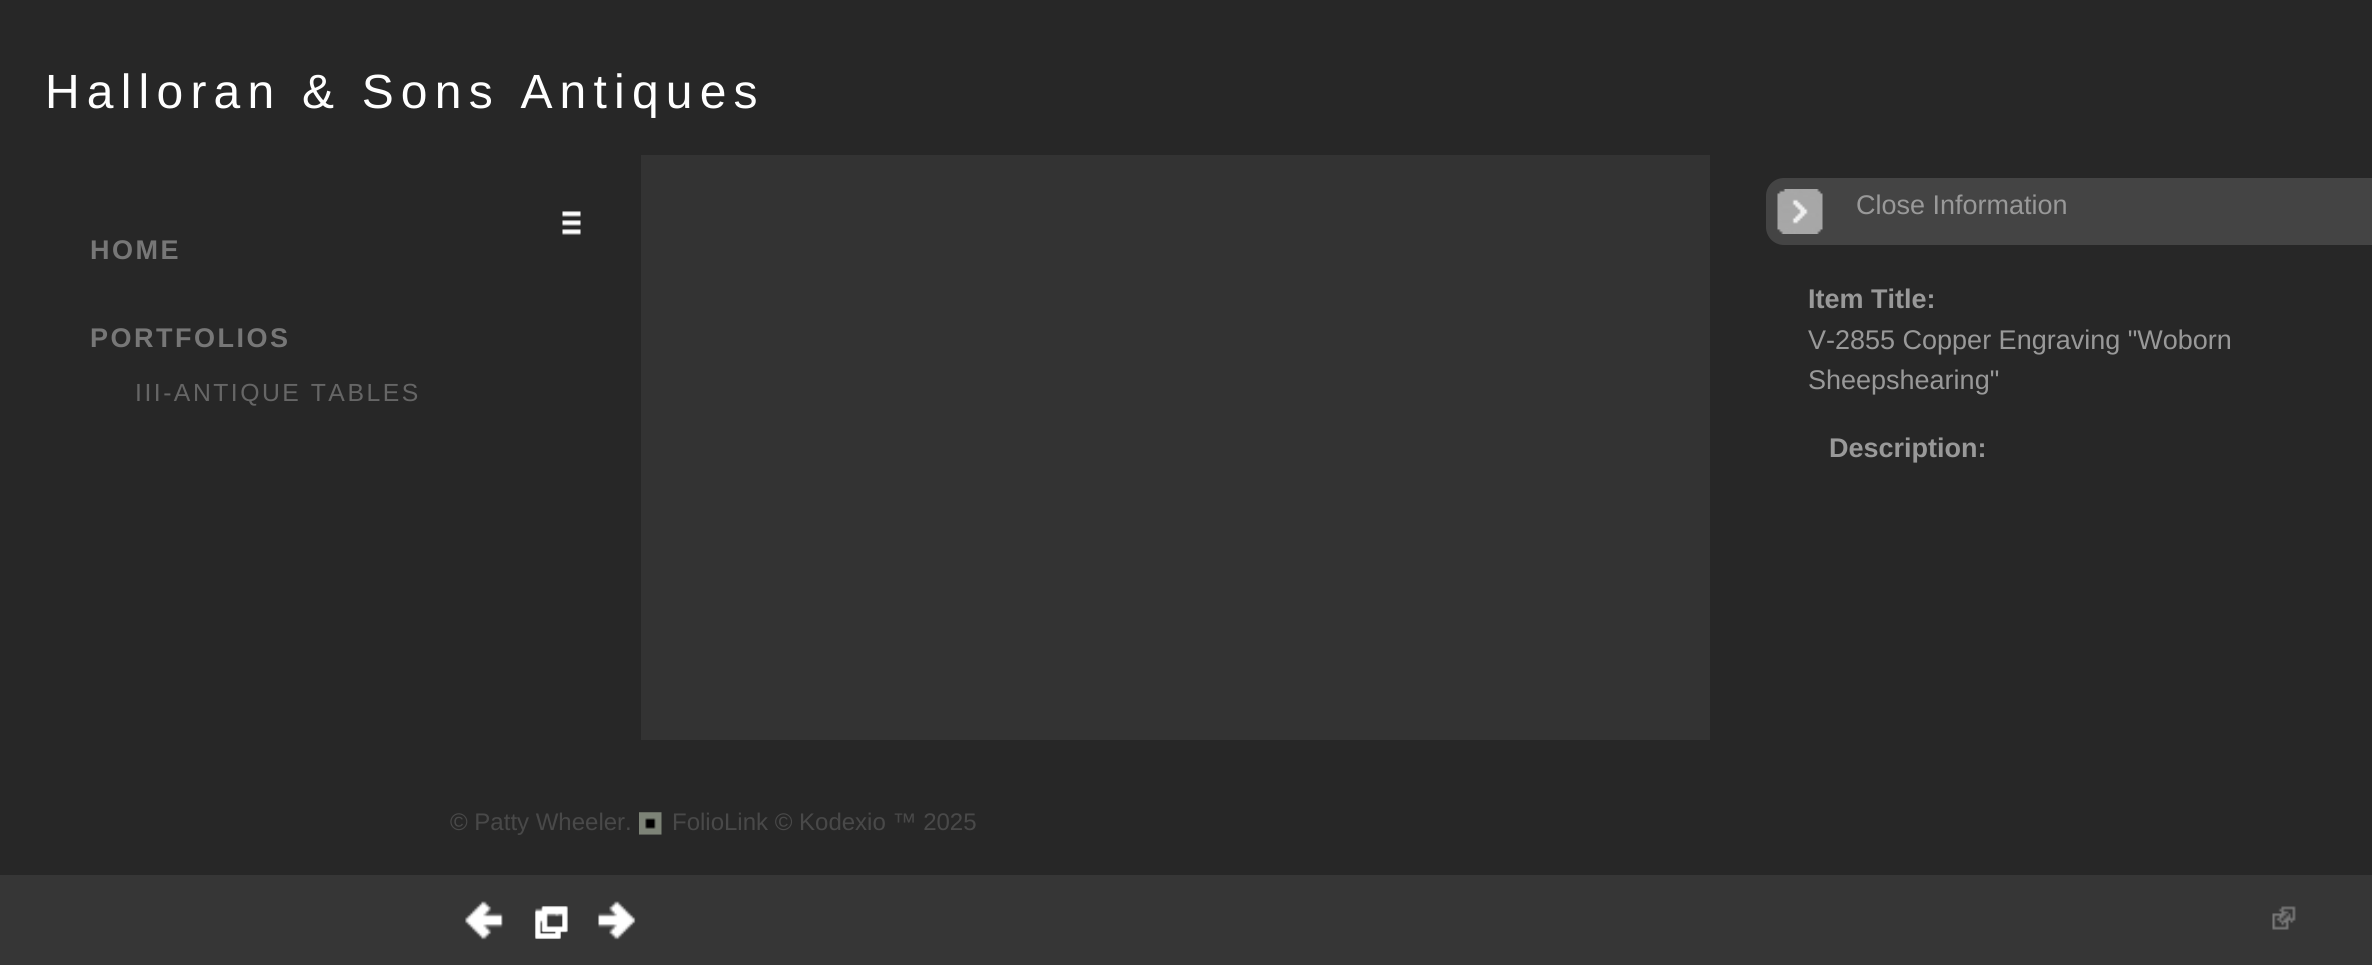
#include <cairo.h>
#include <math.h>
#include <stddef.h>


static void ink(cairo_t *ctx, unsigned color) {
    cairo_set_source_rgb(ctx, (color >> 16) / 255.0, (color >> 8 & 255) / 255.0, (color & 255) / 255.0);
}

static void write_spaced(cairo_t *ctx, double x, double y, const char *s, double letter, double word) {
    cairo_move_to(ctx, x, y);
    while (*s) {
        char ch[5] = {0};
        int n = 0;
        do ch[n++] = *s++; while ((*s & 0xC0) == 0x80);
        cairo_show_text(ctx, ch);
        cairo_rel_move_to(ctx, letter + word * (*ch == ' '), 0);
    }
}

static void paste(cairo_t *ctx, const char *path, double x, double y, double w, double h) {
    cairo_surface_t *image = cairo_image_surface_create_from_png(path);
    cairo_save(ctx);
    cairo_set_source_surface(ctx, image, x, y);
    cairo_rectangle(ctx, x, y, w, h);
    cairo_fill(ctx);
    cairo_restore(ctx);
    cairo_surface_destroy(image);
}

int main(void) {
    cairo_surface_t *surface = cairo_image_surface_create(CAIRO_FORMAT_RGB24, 2372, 965);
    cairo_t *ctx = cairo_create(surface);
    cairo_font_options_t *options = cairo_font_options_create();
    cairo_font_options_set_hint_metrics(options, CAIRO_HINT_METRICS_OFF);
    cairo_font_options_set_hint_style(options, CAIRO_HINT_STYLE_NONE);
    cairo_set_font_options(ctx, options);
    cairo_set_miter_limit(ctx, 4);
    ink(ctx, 0x272727);
    cairo_paint(ctx);
    cairo_select_font_face(ctx, "Liberation Sans", CAIRO_FONT_SLANT_NORMAL, CAIRO_FONT_WEIGHT_NORMAL);
    cairo_set_font_size(ctx, 48);
    ink(ctx, 0xFFFFFF);
    write_spaced(ctx, 45, 108, "Halloran & Sons Antiques", 7.2, 0);
    paste(ctx, "media/1.png", 562, 211, 19, 24);
    cairo_select_font_face(ctx, "Liberation Sans", CAIRO_FONT_SLANT_NORMAL, CAIRO_FONT_WEIGHT_BOLD);
    cairo_set_font_size(ctx, 27);
    ink(ctx, 0x777777);
    write_spaced(ctx, 90, 259, "HOME", 2.5, 0);
    write_spaced(ctx, 90, 347, "PORTFOLIOS", 2.5, 0);
    cairo_select_font_face(ctx, "Liberation Sans", CAIRO_FONT_SLANT_NORMAL, CAIRO_FONT_WEIGHT_NORMAL);
    cairo_set_font_size(ctx, 24.75);
    ink(ctx, 0x666666);
    write_spaced(ctx, 135, 401, "III-ANTIQUE TABLES", 2.5, 0);
    ink(ctx, 0x333333);
    cairo_rectangle(ctx, 641, 155, 1069, 585);
    cairo_fill(ctx);
    ink(ctx, 0x444444);
    cairo_new_path(ctx);
    cairo_move_to(ctx, 1784, 178);
    cairo_line_to(ctx, 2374, 178);
    cairo_line_to(ctx, 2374, 245);
    cairo_line_to(ctx, 1784, 245);
    cairo_curve_to(ctx, 1774, 245, 1766, 237, 1766, 227);
    cairo_line_to(ctx, 1766, 196);
    cairo_curve_to(ctx, 1766, 186, 1774, 178, 1784, 178);
    cairo_close_path(ctx);
    cairo_fill(ctx);
    paste(ctx, "media/2.png", 1777, 189, 46, 45);
    cairo_set_font_size(ctx, 27);
    ink(ctx, 0x999999);
    cairo_move_to(ctx, 1856, 214);
    cairo_show_text(ctx, "Close Information");
    cairo_select_font_face(ctx, "Liberation Sans", CAIRO_FONT_SLANT_NORMAL, CAIRO_FONT_WEIGHT_BOLD);
    cairo_move_to(ctx, 1808, 308);
    cairo_show_text(ctx, "Item Title:");
    cairo_select_font_face(ctx, "Liberation Sans", CAIRO_FONT_SLANT_NORMAL, CAIRO_FONT_WEIGHT_NORMAL);
    cairo_move_to(ctx, 1808, 349);
    cairo_show_text(ctx, "V-2855 Copper Engraving \"Woborn");
    cairo_move_to(ctx, 1808, 389);
    cairo_show_text(ctx, "Sheepshearing\"");
    cairo_select_font_face(ctx, "Liberation Sans", CAIRO_FONT_SLANT_NORMAL, CAIRO_FONT_WEIGHT_BOLD);
    cairo_move_to(ctx, 1829, 457);
    cairo_show_text(ctx, "Description:");
    cairo_select_font_face(ctx, "Liberation Sans", CAIRO_FONT_SLANT_NORMAL, CAIRO_FONT_WEIGHT_NORMAL);
    cairo_set_font_size(ctx, 24);
    ink(ctx, 0x494949);
    cairo_move_to(ctx, 450, 830);
    cairo_show_text(ctx, "© Patty Wheeler.");
    paste(ctx, "media/3.png", 639, 812, 23, 23);
    cairo_move_to(ctx, 672, 830);
    cairo_show_text(ctx, "FolioLink © Kodexio ™ 2025");
    ink(ctx, 0x363636);
    cairo_rectangle(ctx, 0, 875, 2372, 90);
    cairo_fill(ctx);
    paste(ctx, "media/4.png", 465, 901, 38, 39);
    paste(ctx, "media/5.png", 535, 906, 33, 33);
    paste(ctx, "media/6.png", 535, 906, 33, 33);
    paste(ctx, "media/7.png", 598, 901, 38, 39);
    paste(ctx, "media/8.png", 2272, 906, 24, 24);
    cairo_surface_write_to_png(surface, "image.png");
    cairo_font_options_destroy(options);
    cairo_destroy(ctx);
    cairo_surface_destroy(surface);
    return 0;
}
